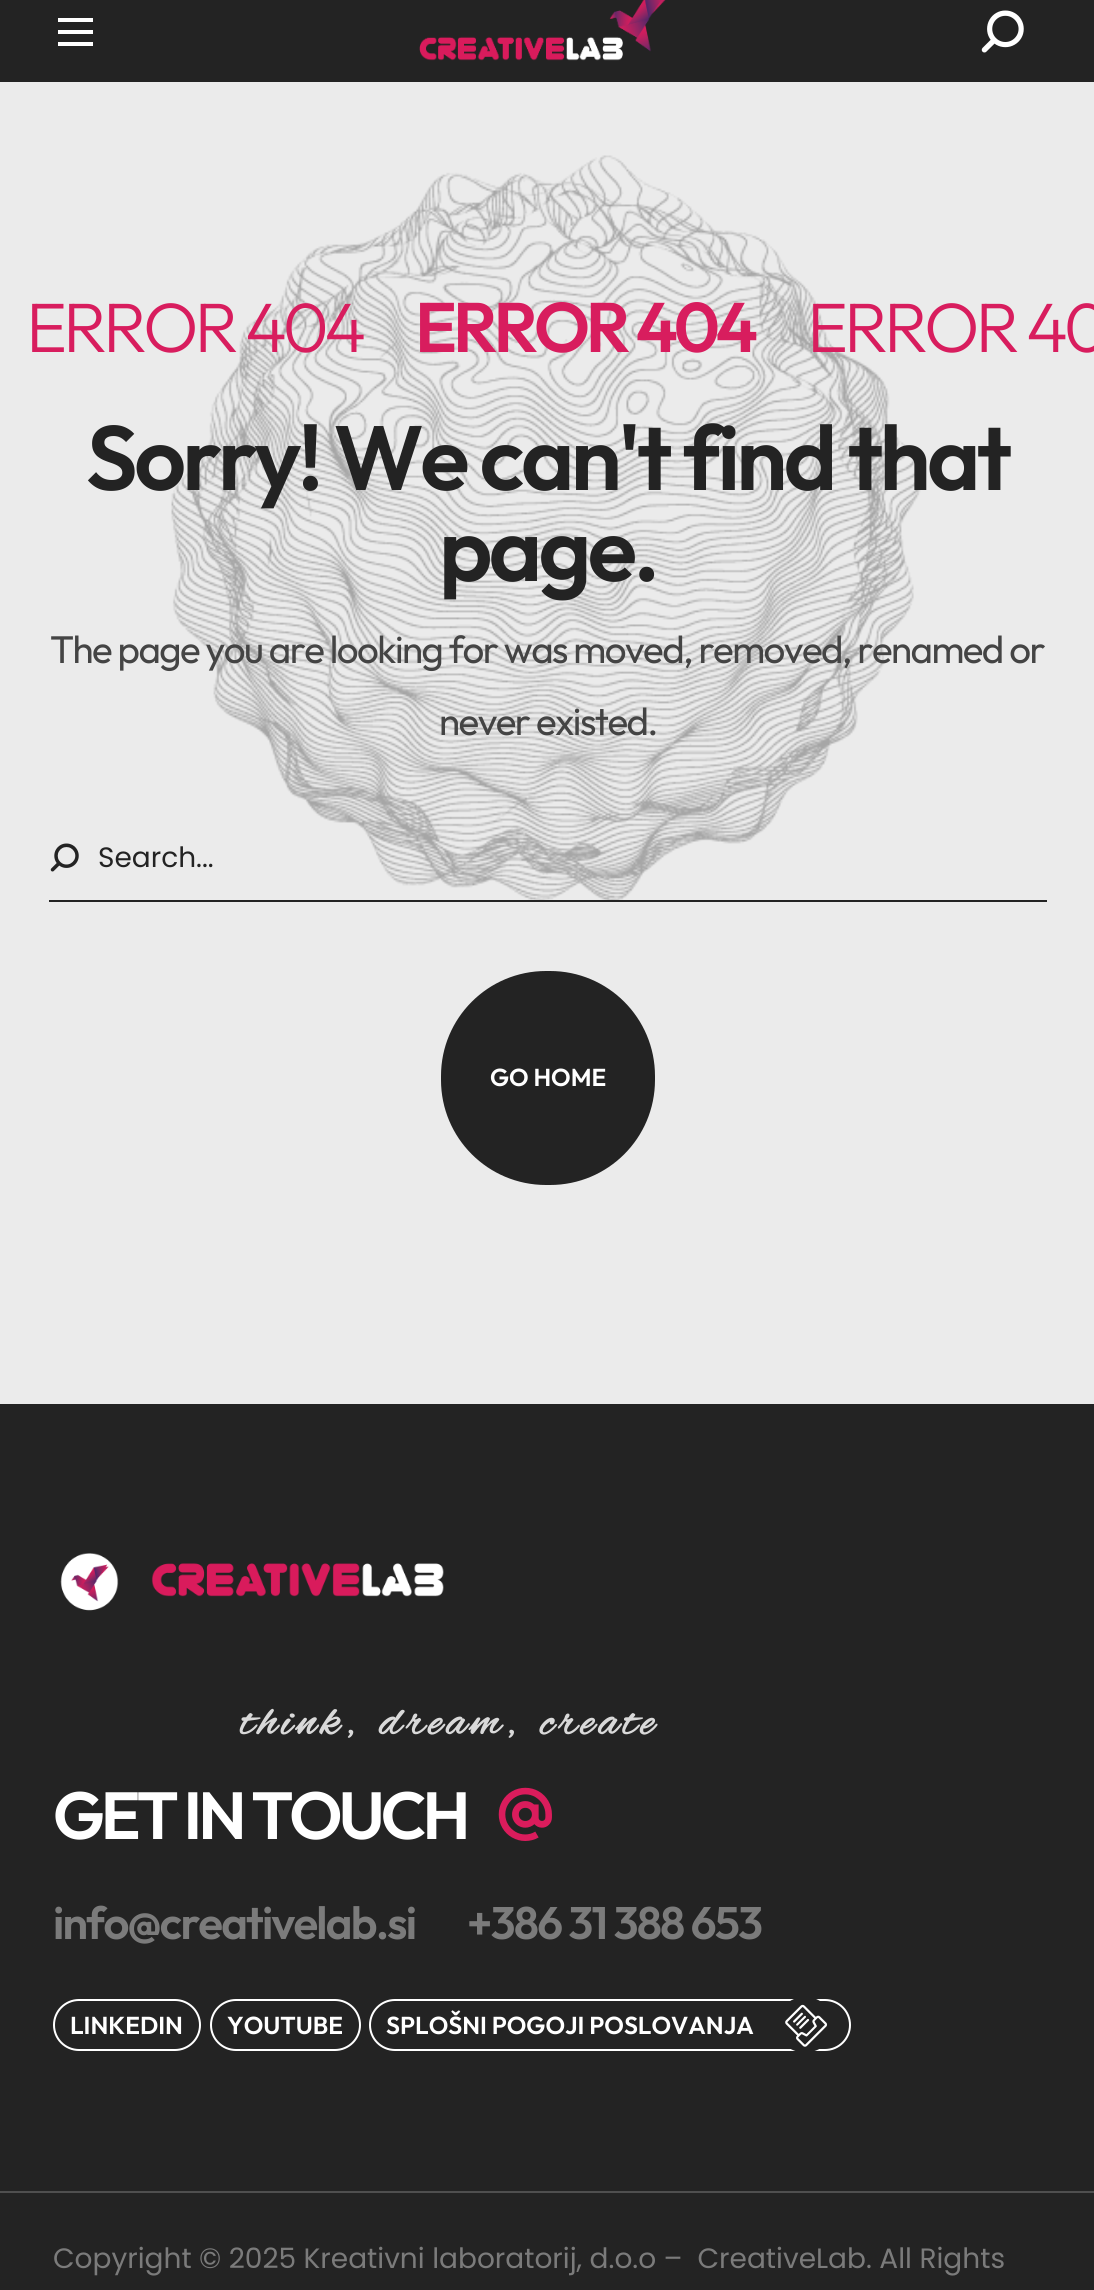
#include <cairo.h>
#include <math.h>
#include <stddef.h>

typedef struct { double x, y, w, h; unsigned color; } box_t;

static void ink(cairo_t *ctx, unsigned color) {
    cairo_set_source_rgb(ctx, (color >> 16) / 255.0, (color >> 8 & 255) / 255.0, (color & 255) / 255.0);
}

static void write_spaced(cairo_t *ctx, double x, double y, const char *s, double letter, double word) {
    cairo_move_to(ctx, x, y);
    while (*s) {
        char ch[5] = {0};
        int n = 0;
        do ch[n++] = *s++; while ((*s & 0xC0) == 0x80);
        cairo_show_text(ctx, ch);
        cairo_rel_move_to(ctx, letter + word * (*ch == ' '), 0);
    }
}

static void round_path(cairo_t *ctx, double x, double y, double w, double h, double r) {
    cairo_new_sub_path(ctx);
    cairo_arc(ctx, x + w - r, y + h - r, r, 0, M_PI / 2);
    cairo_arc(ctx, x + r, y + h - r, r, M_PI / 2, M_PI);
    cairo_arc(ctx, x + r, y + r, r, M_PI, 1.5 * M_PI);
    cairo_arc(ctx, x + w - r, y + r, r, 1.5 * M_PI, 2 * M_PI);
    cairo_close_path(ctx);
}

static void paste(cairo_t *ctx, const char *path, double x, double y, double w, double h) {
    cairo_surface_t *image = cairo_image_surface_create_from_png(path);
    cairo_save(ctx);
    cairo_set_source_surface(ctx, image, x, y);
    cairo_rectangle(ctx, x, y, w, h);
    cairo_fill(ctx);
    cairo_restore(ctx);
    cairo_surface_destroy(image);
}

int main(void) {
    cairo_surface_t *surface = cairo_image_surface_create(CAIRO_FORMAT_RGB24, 1094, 2290);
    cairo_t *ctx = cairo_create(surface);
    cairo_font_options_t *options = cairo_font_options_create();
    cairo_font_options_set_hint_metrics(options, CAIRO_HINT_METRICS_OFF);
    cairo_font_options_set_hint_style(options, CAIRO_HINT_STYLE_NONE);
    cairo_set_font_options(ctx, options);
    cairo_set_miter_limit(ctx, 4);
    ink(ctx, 0xEBEBEB);
    cairo_paint(ctx);
    {
        static const box_t items[] = {
            {0, 0, 1094, 82, 0x232323},
            {58, 18, 35, 4, 0xFFFFFF},
            {58, 30, 35, 4, 0xFFFFFF},
            {58, 42, 35, 4, 0xFFFFFF},
        };
        for (size_t i = 0; i < sizeof items / sizeof *items; i++) {
            ink(ctx, items[i].color);
            cairo_rectangle(ctx, items[i].x, items[i].y, items[i].w, items[i].h);
            cairo_fill(ctx);
        }
    }
    paste(ctx, "media/1.png", 419, 0, 247, 61);
    paste(ctx, "media/2.png", 981, 10, 43, 43);
    paste(ctx, "media/3.png", 171, 155, 752, 745);
    cairo_select_font_face(ctx, "Outfit Light", CAIRO_FONT_SLANT_NORMAL, CAIRO_FONT_WEIGHT_NORMAL);
    cairo_set_font_size(ctx, 70);
    ink(ctx, 0xD81D5E);
    write_spaced(ctx, 26, 352, "ERROR 404", -4.25, 0);
    cairo_select_font_face(ctx, "Outfit SemiBold", CAIRO_FONT_SLANT_NORMAL, CAIRO_FONT_WEIGHT_NORMAL);
    write_spaced(ctx, 415, 352, "ERROR 404", -4.25, 0);
    cairo_select_font_face(ctx, "Outfit Light", CAIRO_FONT_SLANT_NORMAL, CAIRO_FONT_WEIGHT_NORMAL);
    write_spaced(ctx, 807, 352, "ERROR 40", -4.25, 0);
    cairo_select_font_face(ctx, "Outfit SemiBold", CAIRO_FONT_SLANT_NORMAL, CAIRO_FONT_WEIGHT_NORMAL);
    cairo_set_font_size(ctx, 91);
    ink(ctx, 0x232323);
    write_spaced(ctx, 86, 490, "Sorry! We can't find that", -3.65, 0);
    write_spaced(ctx, 439, 581, "page.", -3.65, 0);
    cairo_select_font_face(ctx, "Outfit", CAIRO_FONT_SLANT_NORMAL, CAIRO_FONT_WEIGHT_NORMAL);
    cairo_set_font_size(ctx, 38.5);
    ink(ctx, 0x444444);
    write_spaced(ctx, 50, 663, "The page you are looking for was moved, removed, renamed or", -1.55, 0);
    write_spaced(ctx, 439, 735, "never existed.", -1.55, 0);
    paste(ctx, "media/4.png", 50, 843, 29, 29);
    ink(ctx, 0x232323);
    cairo_rectangle(ctx, 49, 900, 998, 2);
    cairo_fill(ctx);
    cairo_select_font_face(ctx, "Poppins", CAIRO_FONT_SLANT_NORMAL, CAIRO_FONT_WEIGHT_NORMAL);
    cairo_set_font_size(ctx, 28);
    cairo_move_to(ctx, 98, 867);
    cairo_show_text(ctx, "Search...");
    round_path(ctx, 442, 972, 212, 212, 104);
    cairo_fill_preserve(ctx);
    cairo_stroke(ctx);
    cairo_select_font_face(ctx, "Outfit SemiBold", CAIRO_FONT_SLANT_NORMAL, CAIRO_FONT_WEIGHT_NORMAL);
    cairo_set_font_size(ctx, 24.5);
    ink(ctx, 0xFFFFFF);
    cairo_move_to(ctx, 490, 1086);
    cairo_show_text(ctx, "GO HOME");
    ink(ctx, 0x232323);
    cairo_rectangle(ctx, 0, 1404, 1094, 886);
    cairo_fill(ctx);
    paste(ctx, "media/5.png", 60, 1553, 384, 58);
    cairo_select_font_face(ctx, "Alex Brush", CAIRO_FONT_SLANT_NORMAL, CAIRO_FONT_WEIGHT_BOLD);
    cairo_set_font_size(ctx, 47.25);
    ink(ctx, 0xD9D9D9);
    write_spaced(ctx, 240, 1734, "think, dream, create", 4.75, 7);
    cairo_select_font_face(ctx, "Outfit SemiBold", CAIRO_FONT_SLANT_NORMAL, CAIRO_FONT_WEIGHT_NORMAL);
    cairo_set_font_size(ctx, 66.5);
    ink(ctx, 0xFFFFFF);
    write_spaced(ctx, 53, 1839, "GET IN TOUCH", -4, 0);
    paste(ctx, "media/6.png", 498, 1787, 54, 54);
    cairo_set_font_size(ctx, 45.5);
    ink(ctx, 0x7B7B7B);
    write_spaced(ctx, 53, 1939, "info@creativelab.si", -1.8, 0);
    write_spaced(ctx, 467, 1939, "+386 31 388 653", -1.8, 0);
    round_path(ctx, 54, 2000, 146, 50, 25);
    ink(ctx, 0xFFFFFF);
    cairo_stroke(ctx);
    cairo_set_font_size(ctx, 24.5);
    cairo_move_to(ctx, 70, 2034);
    cairo_show_text(ctx, "LINKEDIN");
    round_path(ctx, 211, 2000, 149, 50, 25);
    cairo_stroke(ctx);
    cairo_move_to(ctx, 227, 2034);
    cairo_show_text(ctx, "YOUTUBE");
    round_path(ctx, 370, 2000, 480, 50, 25);
    cairo_stroke(ctx);
    cairo_move_to(ctx, 386, 2034);
    cairo_show_text(ctx, "SPLOŠNI POGOJI POSLOVANJA");
    ink(ctx, 0x232323);
    cairo_new_path(ctx);
    cairo_move_to(ctx, 785, 2005);
    cairo_curve_to(ctx, 796, 1994, 814, 1994, 825, 2005);
    cairo_curve_to(ctx, 836, 2016, 836, 2034, 825, 2045);
    cairo_curve_to(ctx, 814, 2055, 796, 2055, 785, 2045);
    cairo_curve_to(ctx, 774, 2034, 774, 2016, 785, 2005);
    cairo_close_path(ctx);
    cairo_fill(ctx);
    paste(ctx, "media/7.png", 785, 2004, 43, 43);
    ink(ctx, 0x4F4F4F);
    cairo_rectangle(ctx, 0, 2191, 1094, 2);
    cairo_fill(ctx);
    cairo_select_font_face(ctx, "Poppins", CAIRO_FONT_SLANT_NORMAL, CAIRO_FONT_WEIGHT_NORMAL);
    cairo_set_font_size(ctx, 28);
    ink(ctx, 0x7B7B7B);
    cairo_move_to(ctx, 53, 2268);
    cairo_show_text(ctx, "Copyright © 2025 Kreativni laboratorij, d.o.o –  CreativeLab. All Rights");
    cairo_surface_write_to_png(surface, "image.png");
    cairo_font_options_destroy(options);
    cairo_destroy(ctx);
    cairo_surface_destroy(surface);
    return 0;
}
